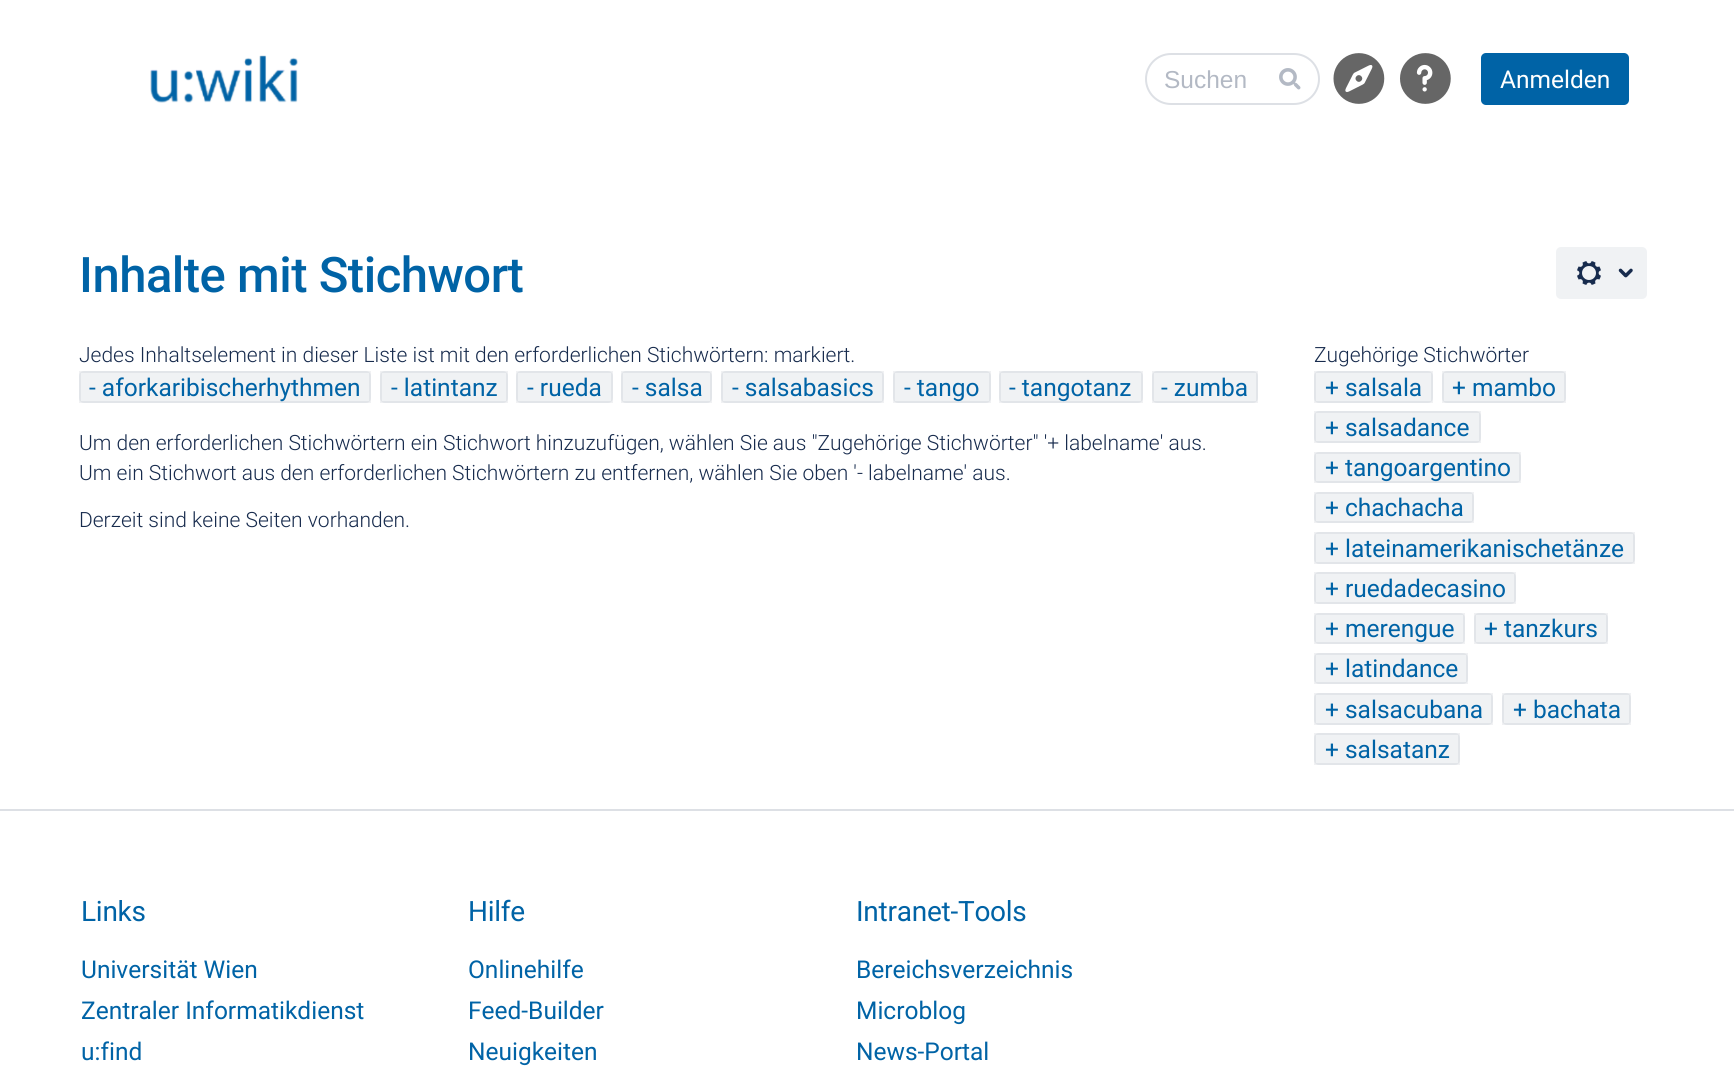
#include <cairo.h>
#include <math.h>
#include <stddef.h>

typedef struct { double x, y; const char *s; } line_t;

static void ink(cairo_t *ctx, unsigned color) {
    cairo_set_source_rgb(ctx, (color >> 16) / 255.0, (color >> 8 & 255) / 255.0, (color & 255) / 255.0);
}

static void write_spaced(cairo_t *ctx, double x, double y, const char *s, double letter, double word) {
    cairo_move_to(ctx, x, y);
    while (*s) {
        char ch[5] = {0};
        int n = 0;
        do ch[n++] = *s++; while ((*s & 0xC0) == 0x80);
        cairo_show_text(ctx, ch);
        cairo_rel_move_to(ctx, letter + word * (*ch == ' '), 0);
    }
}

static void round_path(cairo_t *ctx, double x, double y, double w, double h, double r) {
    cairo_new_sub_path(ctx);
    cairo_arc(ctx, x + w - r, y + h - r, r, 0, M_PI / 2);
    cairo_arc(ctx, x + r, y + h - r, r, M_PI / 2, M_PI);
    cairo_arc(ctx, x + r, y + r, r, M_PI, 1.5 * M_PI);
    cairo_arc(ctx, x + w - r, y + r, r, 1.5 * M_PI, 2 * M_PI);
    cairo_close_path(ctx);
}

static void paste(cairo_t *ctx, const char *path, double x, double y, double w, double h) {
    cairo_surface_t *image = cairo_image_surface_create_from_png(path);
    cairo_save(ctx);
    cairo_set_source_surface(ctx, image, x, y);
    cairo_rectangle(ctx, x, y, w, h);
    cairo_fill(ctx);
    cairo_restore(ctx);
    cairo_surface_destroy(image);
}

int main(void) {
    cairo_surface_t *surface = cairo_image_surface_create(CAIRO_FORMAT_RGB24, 1734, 1075);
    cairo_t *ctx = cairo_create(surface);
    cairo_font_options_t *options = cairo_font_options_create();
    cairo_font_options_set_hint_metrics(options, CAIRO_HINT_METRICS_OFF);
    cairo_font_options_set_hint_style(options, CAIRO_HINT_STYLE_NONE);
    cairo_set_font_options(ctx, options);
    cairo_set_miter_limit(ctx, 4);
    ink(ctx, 0xFFFFFF);
    cairo_paint(ctx);
    paste(ctx, "media/1.png", 150, 55, 148, 48);
    round_path(ctx, 1146, 54, 173, 50, 25);
    ink(ctx, 0xDDE0E5);
    cairo_stroke(ctx);
    cairo_select_font_face(ctx, "Liberation Sans", CAIRO_FONT_SLANT_NORMAL, CAIRO_FONT_WEIGHT_NORMAL);
    cairo_set_font_size(ctx, 24.5);
    ink(ctx, 0xB3B9C4);
    cairo_move_to(ctx, 1164, 88);
    cairo_show_text(ctx, "Suchen");
    paste(ctx, "media/2.png", 1279, 68, 22, 22);
    paste(ctx, "media/3.png", 1333, 53, 52, 51);
    paste(ctx, "media/4.png", 1400, 53, 51, 51);
    ink(ctx, 0x0063A6);
    round_path(ctx, 1481, 53, 148, 52, 5);
    cairo_fill(ctx);
    cairo_select_font_face(ctx, "Roboto", CAIRO_FONT_SLANT_NORMAL, CAIRO_FONT_WEIGHT_NORMAL);
    ink(ctx, 0xFFFFFF);
    cairo_move_to(ctx, 1500, 88);
    cairo_show_text(ctx, "Anmelden");
    cairo_select_font_face(ctx, "Roboto Medium", CAIRO_FONT_SLANT_NORMAL, CAIRO_FONT_WEIGHT_NORMAL);
    cairo_set_font_size(ctx, 49);
    ink(ctx, 0x0063A6);
    write_spaced(ctx, 79, 292, "Inhalte mit Stichwort", -0.5, 0);
    ink(ctx, 0xF0F2F4);
    round_path(ctx, 1556, 247, 91, 52, 5);
    cairo_fill(ctx);
    paste(ctx, "media/5.png", 1577, 261, 24, 24);
    paste(ctx, "media/6.png", 1618, 268, 15, 10);
    cairo_select_font_face(ctx, "Roboto Light", CAIRO_FONT_SLANT_NORMAL, CAIRO_FONT_WEIGHT_NORMAL);
    cairo_set_font_size(ctx, 21);
    ink(ctx, 0x172B4D);
    cairo_move_to(ctx, 79, 362);
    cairo_show_text(ctx, "Jedes Inhaltselement in dieser Liste ist mit den erforderlichen Stichwörtern: markiert.");
    ink(ctx, 0xF0F2F4);
    round_path(ctx, 79, 371, 292, 32, 5);
    cairo_fill(ctx);
    cairo_rectangle(ctx, 80, 372, 290, 30);
    cairo_set_source_rgba(ctx, 0.035, 0.118, 0.259, 0.06);
    cairo_stroke(ctx);
    cairo_select_font_face(ctx, "Roboto", CAIRO_FONT_SLANT_NORMAL, CAIRO_FONT_WEIGHT_NORMAL);
    cairo_set_font_size(ctx, 24.5);
    ink(ctx, 0x0063A6);
    cairo_move_to(ctx, 89, 396);
    cairo_show_text(ctx, "- aforkaribischerhythmen");
    ink(ctx, 0xF0F2F4);
    round_path(ctx, 380, 371, 128, 32, 5);
    cairo_fill(ctx);
    cairo_rectangle(ctx, 381, 372, 126, 30);
    cairo_set_source_rgba(ctx, 0.035, 0.118, 0.259, 0.06);
    cairo_stroke(ctx);
    ink(ctx, 0x0063A6);
    cairo_move_to(ctx, 391, 396);
    cairo_show_text(ctx, "- latintanz");
    ink(ctx, 0xF0F2F4);
    round_path(ctx, 516, 371, 97, 32, 5);
    cairo_fill(ctx);
    cairo_rectangle(ctx, 517, 372, 95, 30);
    cairo_set_source_rgba(ctx, 0.035, 0.118, 0.259, 0.06);
    cairo_stroke(ctx);
    ink(ctx, 0x0063A6);
    cairo_move_to(ctx, 527, 396);
    cairo_show_text(ctx, "- rueda");
    ink(ctx, 0xF0F2F4);
    round_path(ctx, 621, 371, 91, 32, 5);
    cairo_fill(ctx);
    cairo_rectangle(ctx, 622, 372, 89, 30);
    cairo_set_source_rgba(ctx, 0.035, 0.118, 0.259, 0.06);
    cairo_stroke(ctx);
    ink(ctx, 0x0063A6);
    cairo_move_to(ctx, 632, 396);
    cairo_show_text(ctx, "- salsa");
    ink(ctx, 0xF0F2F4);
    round_path(ctx, 721, 371, 163, 32, 5);
    cairo_fill(ctx);
    cairo_rectangle(ctx, 722, 372, 161, 30);
    cairo_set_source_rgba(ctx, 0.035, 0.118, 0.259, 0.06);
    cairo_stroke(ctx);
    ink(ctx, 0x0063A6);
    cairo_move_to(ctx, 732, 396);
    cairo_show_text(ctx, "- salsabasics");
    ink(ctx, 0xF0F2F4);
    round_path(ctx, 893, 371, 98, 32, 5);
    cairo_fill(ctx);
    cairo_rectangle(ctx, 894, 372, 96, 30);
    cairo_set_source_rgba(ctx, 0.035, 0.118, 0.259, 0.06);
    cairo_stroke(ctx);
    ink(ctx, 0x0063A6);
    cairo_move_to(ctx, 904, 396);
    cairo_show_text(ctx, "- tango");
    ink(ctx, 0xF0F2F4);
    round_path(ctx, 999, 371, 144, 32, 5);
    cairo_fill(ctx);
    cairo_rectangle(ctx, 1000, 372, 142, 30);
    cairo_set_source_rgba(ctx, 0.035, 0.118, 0.259, 0.06);
    cairo_stroke(ctx);
    ink(ctx, 0x0063A6);
    cairo_move_to(ctx, 1009, 396);
    cairo_show_text(ctx, "- tangotanz");
    ink(ctx, 0xF0F2F4);
    round_path(ctx, 1152, 371, 106, 32, 5);
    cairo_fill(ctx);
    cairo_rectangle(ctx, 1153, 372, 104, 30);
    cairo_set_source_rgba(ctx, 0.035, 0.118, 0.259, 0.06);
    cairo_stroke(ctx);
    ink(ctx, 0x0063A6);
    cairo_move_to(ctx, 1161, 396);
    cairo_show_text(ctx, "- zumba");
    cairo_select_font_face(ctx, "Roboto Light", CAIRO_FONT_SLANT_NORMAL, CAIRO_FONT_WEIGHT_NORMAL);
    cairo_set_font_size(ctx, 21);
    ink(ctx, 0x172B4D);
    {
        static const line_t items[] = {
            {79, 450, "Um den erforderlichen Stichwörtern ein Stichwort hinzuzufügen, wählen Sie aus \"Zugehörige Stichwörter\" '+ labelname' aus."},
            {79, 480, "Um ein Stichwort aus den erforderlichen Stichwörtern zu entfernen, wählen Sie oben '- labelname' aus."},
            {79, 527, "Derzeit sind keine Seiten vorhanden."},
            {1314, 362, "Zugehörige Stichwörter"},
        };
        for (size_t i = 0; i < sizeof items / sizeof *items; i++) {
            cairo_move_to(ctx, items[i].x, items[i].y);
            cairo_show_text(ctx, items[i].s);
        }
    }
    ink(ctx, 0xF0F2F4);
    round_path(ctx, 1314, 371, 119, 32, 5);
    cairo_fill(ctx);
    cairo_rectangle(ctx, 1315, 372, 117, 30);
    cairo_set_source_rgba(ctx, 0.035, 0.118, 0.259, 0.06);
    cairo_stroke(ctx);
    cairo_select_font_face(ctx, "Roboto", CAIRO_FONT_SLANT_NORMAL, CAIRO_FONT_WEIGHT_NORMAL);
    cairo_set_font_size(ctx, 24.5);
    ink(ctx, 0x0063A6);
    cairo_move_to(ctx, 1325, 396);
    cairo_show_text(ctx, "+ salsala");
    ink(ctx, 0xF0F2F4);
    round_path(ctx, 1442, 371, 124, 32, 5);
    cairo_fill(ctx);
    cairo_rectangle(ctx, 1443, 372, 122, 30);
    cairo_set_source_rgba(ctx, 0.035, 0.118, 0.259, 0.06);
    cairo_stroke(ctx);
    ink(ctx, 0x0063A6);
    cairo_move_to(ctx, 1452, 396);
    cairo_show_text(ctx, "+ mambo");
    ink(ctx, 0xF0F2F4);
    round_path(ctx, 1314, 411, 167, 32, 5);
    cairo_fill(ctx);
    cairo_rectangle(ctx, 1315, 412, 165, 30);
    cairo_set_source_rgba(ctx, 0.035, 0.118, 0.259, 0.06);
    cairo_stroke(ctx);
    ink(ctx, 0x0063A6);
    cairo_move_to(ctx, 1325, 436);
    cairo_show_text(ctx, "+ salsadance");
    ink(ctx, 0xF0F2F4);
    round_path(ctx, 1314, 452, 207, 31, 5);
    cairo_fill(ctx);
    cairo_rectangle(ctx, 1315, 453, 205, 29);
    cairo_set_source_rgba(ctx, 0.035, 0.118, 0.259, 0.06);
    cairo_stroke(ctx);
    ink(ctx, 0x0063A6);
    cairo_move_to(ctx, 1325, 476);
    cairo_show_text(ctx, "+ tangoargentino");
    ink(ctx, 0xF0F2F4);
    round_path(ctx, 1314, 492, 160, 31, 5);
    cairo_fill(ctx);
    cairo_rectangle(ctx, 1315, 493, 158, 29);
    cairo_set_source_rgba(ctx, 0.035, 0.118, 0.259, 0.06);
    cairo_stroke(ctx);
    ink(ctx, 0x0063A6);
    cairo_move_to(ctx, 1325, 516);
    cairo_show_text(ctx, "+ chachacha");
    ink(ctx, 0xF0F2F4);
    round_path(ctx, 1314, 532, 321, 32, 5);
    cairo_fill(ctx);
    cairo_rectangle(ctx, 1315, 533, 319, 30);
    cairo_set_source_rgba(ctx, 0.035, 0.118, 0.259, 0.06);
    cairo_stroke(ctx);
    ink(ctx, 0x0063A6);
    cairo_move_to(ctx, 1325, 557);
    cairo_show_text(ctx, "+ lateinamerikanischetänze");
    ink(ctx, 0xF0F2F4);
    round_path(ctx, 1314, 572, 202, 32, 5);
    cairo_fill(ctx);
    cairo_rectangle(ctx, 1315, 573, 200, 30);
    cairo_set_source_rgba(ctx, 0.035, 0.118, 0.259, 0.06);
    cairo_stroke(ctx);
    ink(ctx, 0x0063A6);
    cairo_move_to(ctx, 1325, 597);
    cairo_show_text(ctx, "+ ruedadecasino");
    ink(ctx, 0xF0F2F4);
    round_path(ctx, 1314, 613, 151, 31, 5);
    cairo_fill(ctx);
    cairo_rectangle(ctx, 1315, 614, 149, 29);
    cairo_set_source_rgba(ctx, 0.035, 0.118, 0.259, 0.06);
    cairo_stroke(ctx);
    ink(ctx, 0x0063A6);
    cairo_move_to(ctx, 1325, 637);
    cairo_show_text(ctx, "+ merengue");
    ink(ctx, 0xF0F2F4);
    round_path(ctx, 1474, 613, 134, 31, 5);
    cairo_fill(ctx);
    cairo_rectangle(ctx, 1475, 614, 132, 29);
    cairo_set_source_rgba(ctx, 0.035, 0.118, 0.259, 0.06);
    cairo_stroke(ctx);
    ink(ctx, 0x0063A6);
    cairo_move_to(ctx, 1484, 637);
    cairo_show_text(ctx, "+ tanzkurs");
    ink(ctx, 0xF0F2F4);
    round_path(ctx, 1314, 653, 154, 31, 5);
    cairo_fill(ctx);
    cairo_rectangle(ctx, 1315, 654, 152, 29);
    cairo_set_source_rgba(ctx, 0.035, 0.118, 0.259, 0.06);
    cairo_stroke(ctx);
    ink(ctx, 0x0063A6);
    cairo_move_to(ctx, 1325, 677);
    cairo_show_text(ctx, "+ latindance");
    ink(ctx, 0xF0F2F4);
    round_path(ctx, 1314, 693, 179, 32, 5);
    cairo_fill(ctx);
    cairo_rectangle(ctx, 1315, 694, 177, 30);
    cairo_set_source_rgba(ctx, 0.035, 0.118, 0.259, 0.06);
    cairo_stroke(ctx);
    ink(ctx, 0x0063A6);
    cairo_move_to(ctx, 1325, 718);
    cairo_show_text(ctx, "+ salsacubana");
    ink(ctx, 0xF0F2F4);
    round_path(ctx, 1502, 693, 129, 32, 5);
    cairo_fill(ctx);
    cairo_rectangle(ctx, 1503, 694, 127, 30);
    cairo_set_source_rgba(ctx, 0.035, 0.118, 0.259, 0.06);
    cairo_stroke(ctx);
    ink(ctx, 0x0063A6);
    cairo_move_to(ctx, 1513, 718);
    cairo_show_text(ctx, "+ bachata");
    ink(ctx, 0xF0F2F4);
    round_path(ctx, 1314, 733, 146, 32, 5);
    cairo_fill(ctx);
    cairo_rectangle(ctx, 1315, 734, 144, 30);
    cairo_set_source_rgba(ctx, 0.035, 0.118, 0.259, 0.06);
    cairo_stroke(ctx);
    ink(ctx, 0x0063A6);
    cairo_move_to(ctx, 1325, 758);
    cairo_show_text(ctx, "+ salsatanz");
    ink(ctx, 0xDDE0E5);
    cairo_rectangle(ctx, 0, 809, 1734, 2);
    cairo_fill(ctx);
    cairo_set_font_size(ctx, 28);
    ink(ctx, 0x0063A6);
    write_spaced(ctx, 81, 921, "Links", -0.25, 0);
    cairo_set_font_size(ctx, 24.5);
    {
        static const line_t items[] = {
            {81, 978, "Universität Wien"},
            {81, 1019, "Zentraler Informatikdienst"},
            {81, 1060, "u:find"},
        };
        for (size_t i = 0; i < sizeof items / sizeof *items; i++) {
            cairo_move_to(ctx, items[i].x, items[i].y);
            cairo_show_text(ctx, items[i].s);
        }
    }
    cairo_set_font_size(ctx, 28);
    write_spaced(ctx, 468, 921, "Hilfe", -0.25, 0);
    cairo_set_font_size(ctx, 24.5);
    {
        static const line_t items[] = {
            {468, 978, "Onlinehilfe"},
            {468, 1019, "Feed-Builder"},
            {468, 1060, "Neuigkeiten"},
        };
        for (size_t i = 0; i < sizeof items / sizeof *items; i++) {
            cairo_move_to(ctx, items[i].x, items[i].y);
            cairo_show_text(ctx, items[i].s);
        }
    }
    cairo_set_font_size(ctx, 28);
    write_spaced(ctx, 856, 921, "Intranet-Tools", -0.25, 0);
    cairo_set_font_size(ctx, 24.5);
    {
        static const line_t items[] = {
            {856, 978, "Bereichsverzeichnis"},
            {856, 1019, "Microblog"},
            {856, 1060, "News-Portal"},
        };
        for (size_t i = 0; i < sizeof items / sizeof *items; i++) {
            cairo_move_to(ctx, items[i].x, items[i].y);
            cairo_show_text(ctx, items[i].s);
        }
    }
    cairo_surface_write_to_png(surface, "image.png");
    cairo_font_options_destroy(options);
    cairo_destroy(ctx);
    cairo_surface_destroy(surface);
    return 0;
}
